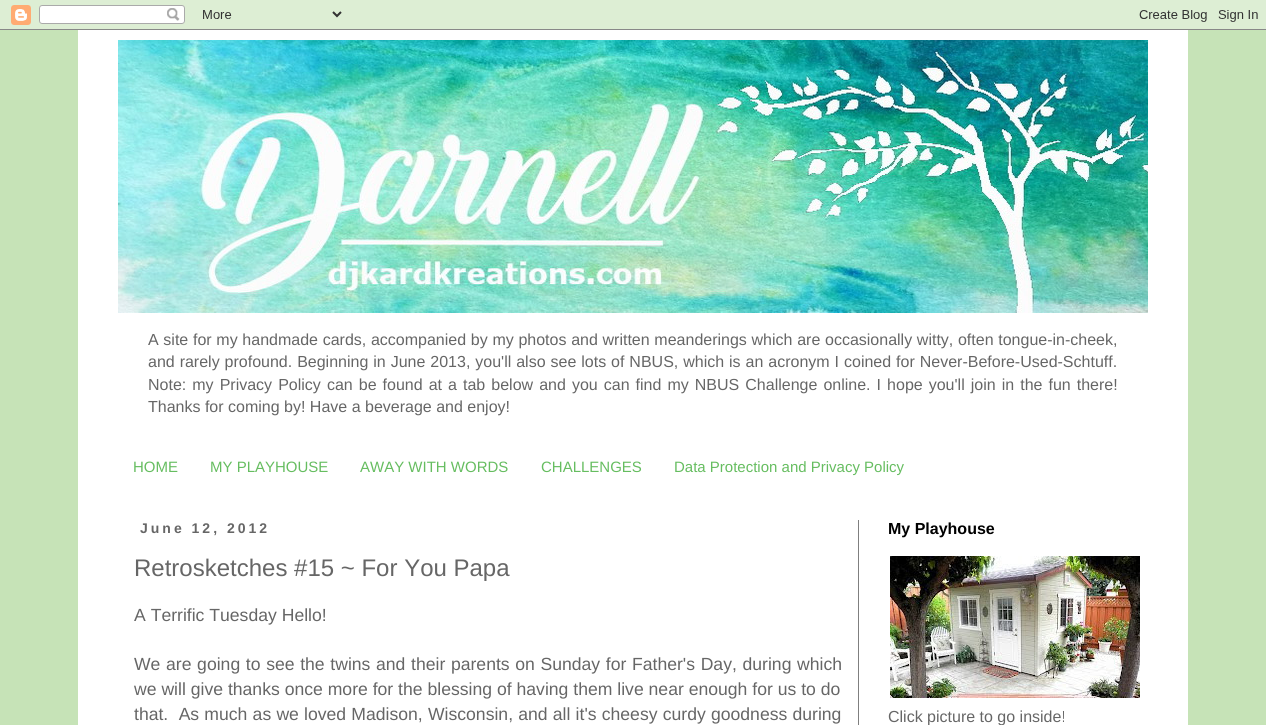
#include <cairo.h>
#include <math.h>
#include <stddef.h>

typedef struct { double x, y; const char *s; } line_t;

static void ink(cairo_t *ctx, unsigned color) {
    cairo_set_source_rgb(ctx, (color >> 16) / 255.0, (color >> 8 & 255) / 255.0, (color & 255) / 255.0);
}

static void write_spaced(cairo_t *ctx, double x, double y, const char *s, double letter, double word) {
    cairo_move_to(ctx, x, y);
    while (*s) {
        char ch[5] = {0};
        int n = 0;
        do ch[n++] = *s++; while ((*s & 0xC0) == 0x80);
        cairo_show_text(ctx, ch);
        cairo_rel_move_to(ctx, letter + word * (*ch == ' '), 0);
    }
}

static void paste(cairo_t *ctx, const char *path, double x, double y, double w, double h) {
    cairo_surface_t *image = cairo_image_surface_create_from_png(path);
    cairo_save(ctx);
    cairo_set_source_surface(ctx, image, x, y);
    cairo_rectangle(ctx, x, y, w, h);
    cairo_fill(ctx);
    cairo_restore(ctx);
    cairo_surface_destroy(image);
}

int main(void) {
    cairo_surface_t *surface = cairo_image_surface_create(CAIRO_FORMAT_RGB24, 1266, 725);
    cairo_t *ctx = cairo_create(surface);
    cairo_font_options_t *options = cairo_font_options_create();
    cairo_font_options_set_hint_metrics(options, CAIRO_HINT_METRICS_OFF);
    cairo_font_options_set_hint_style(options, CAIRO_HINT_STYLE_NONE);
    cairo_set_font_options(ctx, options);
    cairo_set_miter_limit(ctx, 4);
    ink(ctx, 0xC6E3B7);
    cairo_paint(ctx);
    paste(ctx, "media/1.png", 0, 0, 1266, 30);
    ink(ctx, 0xFFFFFF);
    cairo_rectangle(ctx, 78, 30, 1110, 695);
    cairo_fill(ctx);
    paste(ctx, "media/2.png", 118, 40, 1030, 273);
    cairo_select_font_face(ctx, "Liberation Sans", CAIRO_FONT_SLANT_NORMAL, CAIRO_FONT_WEIGHT_NORMAL);
    cairo_set_font_size(ctx, 16);
    ink(ctx, 0x666666);
    write_spaced(ctx, 148, 345, "A site for my handmade cards, accompanied by my photos and written meanderings which are occasionally witty, often tongue-in-cheek,", 0, 0.25);
    write_spaced(ctx, 148, 367, "and rarely profound. Beginning in June 2013, you'll also see lots of NBUS, which is an acronym I coined for Never-Before-Used-Schtuff.", 0, 0.5);
    write_spaced(ctx, 148, 390, "Note: my Privacy Policy can be found at a tab below and you can find my NBUS Challenge online. I hope you'll join in the fun there!", 0, 1.6);
    cairo_move_to(ctx, 148, 412);
    cairo_show_text(ctx, "Thanks for coming by! Have a beverage and enjoy!");
    cairo_set_font_size(ctx, 15);
    ink(ctx, 0x66BD60);
    {
        static const line_t items[] = {
            {133, 472, "HOME"},
            {210, 472, "MY PLAYHOUSE"},
            {360, 472, "AWAY WITH WORDS"},
            {541, 472, "CHALLENGES"},
            {674, 472, "Data Protection and Privacy Policy"},
        };
        for (size_t i = 0; i < sizeof items / sizeof *items; i++) {
            cairo_move_to(ctx, items[i].x, items[i].y);
            cairo_show_text(ctx, items[i].s);
        }
    }
    ink(ctx, 0x7F7F7F);
    cairo_rectangle(ctx, 858, 520, 1, 205);
    cairo_fill(ctx);
    cairo_select_font_face(ctx, "Liberation Sans", CAIRO_FONT_SLANT_NORMAL, CAIRO_FONT_WEIGHT_BOLD);
    cairo_set_font_size(ctx, 14);
    ink(ctx, 0x666666);
    write_spaced(ctx, 140, 533, "June 12, 2012", 3, 0);
    cairo_select_font_face(ctx, "Liberation Sans", CAIRO_FONT_SLANT_NORMAL, CAIRO_FONT_WEIGHT_NORMAL);
    cairo_set_font_size(ctx, 24);
    cairo_move_to(ctx, 134, 576);
    cairo_show_text(ctx, "Retrosketches #15 ~ For You Papa");
    cairo_set_font_size(ctx, 17.6);
    cairo_move_to(ctx, 134, 621);
    cairo_show_text(ctx, "A Terrific Tuesday Hello!");
    write_spaced(ctx, 134, 670, "We are going to see the twins and their parents on Sunday for Father's Day, during which", 0, 0.75);
    cairo_move_to(ctx, 134, 695);
    cairo_show_text(ctx, "we will give thanks once more for the blessing of having them live near enough for us to do");
    write_spaced(ctx, 134, 720, "that.  As much as we loved Madison, Wisconsin, and all it's cheesy curdy goodness during", 0, 0.3);
    cairo_select_font_face(ctx, "Liberation Sans", CAIRO_FONT_SLANT_NORMAL, CAIRO_FONT_WEIGHT_BOLD);
    cairo_set_font_size(ctx, 16);
    ink(ctx, 0x000000);
    cairo_move_to(ctx, 888, 534);
    cairo_show_text(ctx, "My Playhouse");
    paste(ctx, "media/3.png", 890, 556, 250, 142);
    cairo_select_font_face(ctx, "Liberation Sans", CAIRO_FONT_SLANT_NORMAL, CAIRO_FONT_WEIGHT_NORMAL);
    ink(ctx, 0x666666);
    cairo_move_to(ctx, 888, 722);
    cairo_show_text(ctx, "Click picture to go inside!");
    cairo_surface_write_to_png(surface, "image.png");
    cairo_font_options_destroy(options);
    cairo_destroy(ctx);
    cairo_surface_destroy(surface);
    return 0;
}
